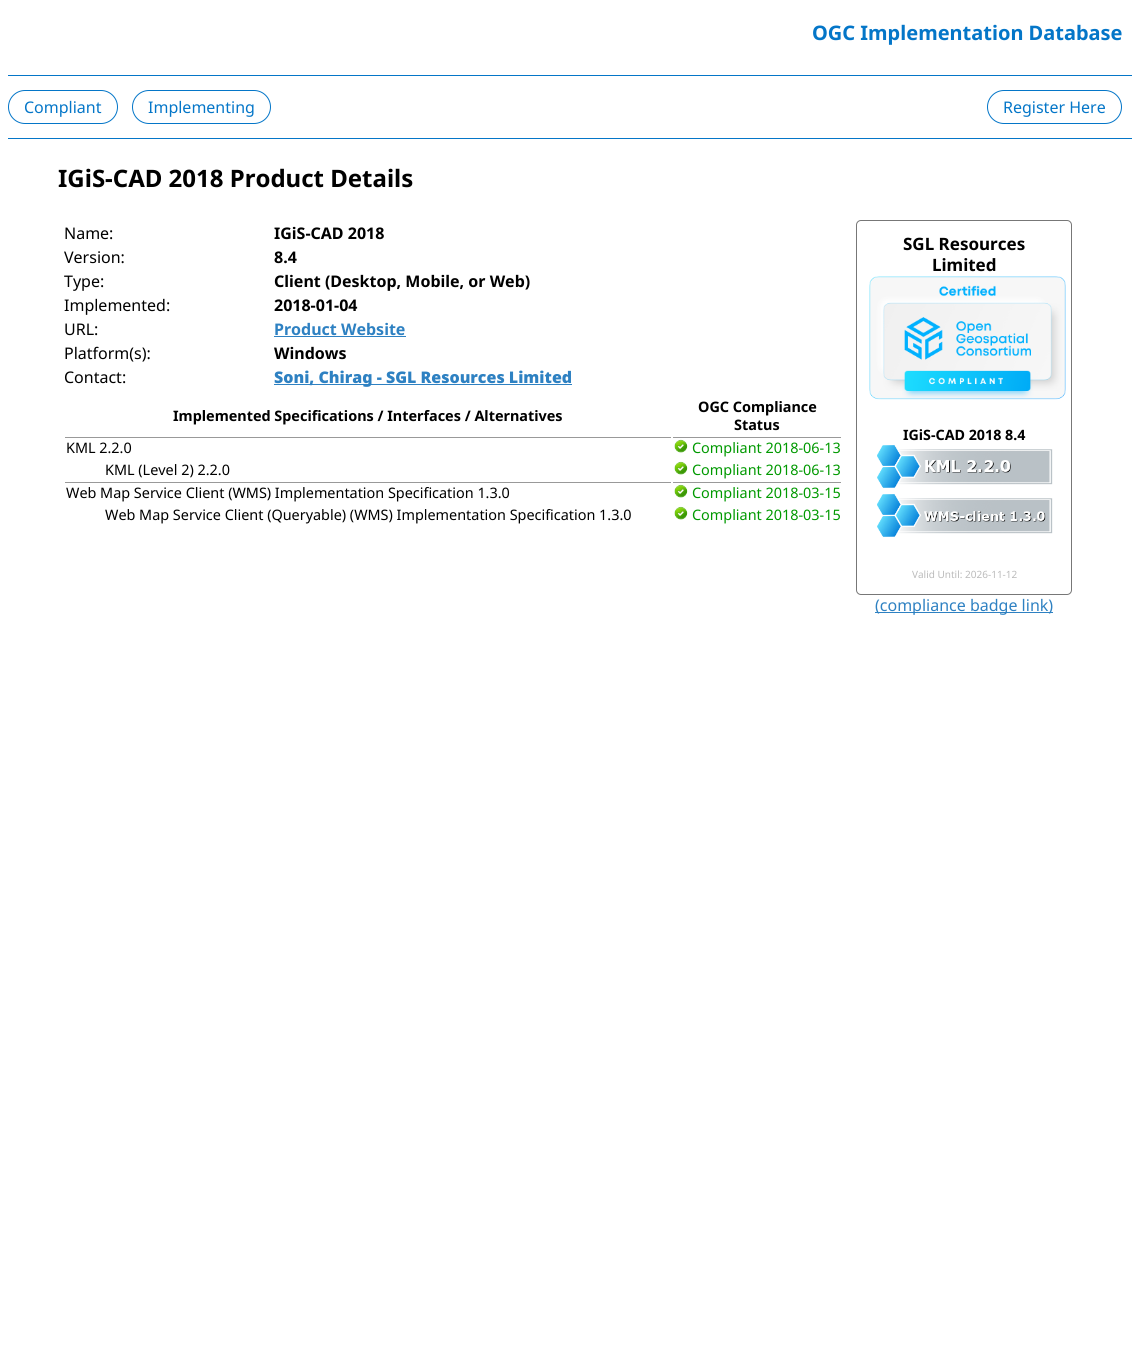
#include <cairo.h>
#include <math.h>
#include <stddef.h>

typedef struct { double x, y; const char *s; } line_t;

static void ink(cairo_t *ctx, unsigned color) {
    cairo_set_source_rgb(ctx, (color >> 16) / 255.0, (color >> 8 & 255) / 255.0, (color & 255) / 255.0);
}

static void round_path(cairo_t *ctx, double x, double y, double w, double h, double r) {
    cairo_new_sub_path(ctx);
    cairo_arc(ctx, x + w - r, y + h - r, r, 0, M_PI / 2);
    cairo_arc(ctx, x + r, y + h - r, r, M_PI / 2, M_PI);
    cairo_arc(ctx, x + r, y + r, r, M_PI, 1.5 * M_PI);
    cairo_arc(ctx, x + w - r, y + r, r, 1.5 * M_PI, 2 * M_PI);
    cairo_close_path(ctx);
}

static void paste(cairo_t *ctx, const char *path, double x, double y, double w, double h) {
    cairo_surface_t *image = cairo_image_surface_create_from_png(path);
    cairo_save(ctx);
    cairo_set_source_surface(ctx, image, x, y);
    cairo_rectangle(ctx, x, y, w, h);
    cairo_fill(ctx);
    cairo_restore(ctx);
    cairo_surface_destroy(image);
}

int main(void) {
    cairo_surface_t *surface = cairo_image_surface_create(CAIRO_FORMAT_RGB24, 1140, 1351);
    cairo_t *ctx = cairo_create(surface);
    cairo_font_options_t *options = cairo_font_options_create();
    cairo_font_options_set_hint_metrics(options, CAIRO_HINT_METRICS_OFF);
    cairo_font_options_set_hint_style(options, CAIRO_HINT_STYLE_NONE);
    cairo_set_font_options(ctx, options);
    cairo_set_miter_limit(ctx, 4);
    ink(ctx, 0xFFFFFF);
    cairo_paint(ctx);
    cairo_select_font_face(ctx, "Noto Sans", CAIRO_FONT_SLANT_NORMAL, CAIRO_FONT_WEIGHT_BOLD);
    cairo_set_font_size(ctx, 20);
    ink(ctx, 0x0476C8);
    cairo_move_to(ctx, 812, 40);
    cairo_show_text(ctx, "OGC Implementation Database");
    cairo_rectangle(ctx, 8, 75, 1124, 1);
    cairo_fill(ctx);
    round_path(ctx, 8.5, 90.5, 109, 33, 16.5);
    cairo_set_line_width(ctx, 1);
    cairo_stroke(ctx);
    cairo_select_font_face(ctx, "Noto Sans", CAIRO_FONT_SLANT_NORMAL, CAIRO_FONT_WEIGHT_NORMAL);
    cairo_set_font_size(ctx, 16);
    cairo_move_to(ctx, 24, 113);
    cairo_show_text(ctx, "Compliant");
    round_path(ctx, 132.5, 90.5, 138, 33, 16.5);
    cairo_stroke(ctx);
    cairo_move_to(ctx, 148, 113);
    cairo_show_text(ctx, "Implementing");
    round_path(ctx, 987.5, 90.5, 134, 33, 16.5);
    cairo_stroke(ctx);
    cairo_move_to(ctx, 1003, 113);
    cairo_show_text(ctx, "Register Here");
    cairo_rectangle(ctx, 8, 138, 1124, 1);
    cairo_fill(ctx);
    cairo_select_font_face(ctx, "Noto Sans", CAIRO_FONT_SLANT_NORMAL, CAIRO_FONT_WEIGHT_BOLD);
    cairo_set_font_size(ctx, 24);
    ink(ctx, 0x000000);
    cairo_move_to(ctx, 58, 187);
    cairo_show_text(ctx, "IGiS-CAD 2018 Product Details");
    cairo_select_font_face(ctx, "Noto Sans", CAIRO_FONT_SLANT_NORMAL, CAIRO_FONT_WEIGHT_NORMAL);
    cairo_set_font_size(ctx, 16);
    cairo_move_to(ctx, 64, 239);
    cairo_show_text(ctx, "Name:");
    cairo_select_font_face(ctx, "Noto Sans", CAIRO_FONT_SLANT_NORMAL, CAIRO_FONT_WEIGHT_BOLD);
    cairo_move_to(ctx, 274, 239);
    cairo_show_text(ctx, "IGiS-CAD 2018");
    cairo_select_font_face(ctx, "Noto Sans", CAIRO_FONT_SLANT_NORMAL, CAIRO_FONT_WEIGHT_NORMAL);
    cairo_move_to(ctx, 64, 263);
    cairo_show_text(ctx, "Version:");
    cairo_select_font_face(ctx, "Noto Sans", CAIRO_FONT_SLANT_NORMAL, CAIRO_FONT_WEIGHT_BOLD);
    cairo_move_to(ctx, 274, 263);
    cairo_show_text(ctx, "8.4");
    cairo_select_font_face(ctx, "Noto Sans", CAIRO_FONT_SLANT_NORMAL, CAIRO_FONT_WEIGHT_NORMAL);
    cairo_move_to(ctx, 64, 287);
    cairo_show_text(ctx, "Type:");
    cairo_select_font_face(ctx, "Noto Sans", CAIRO_FONT_SLANT_NORMAL, CAIRO_FONT_WEIGHT_BOLD);
    cairo_move_to(ctx, 274, 287);
    cairo_show_text(ctx, "Client (Desktop, Mobile, or Web)");
    cairo_select_font_face(ctx, "Noto Sans", CAIRO_FONT_SLANT_NORMAL, CAIRO_FONT_WEIGHT_NORMAL);
    cairo_move_to(ctx, 64, 311);
    cairo_show_text(ctx, "Implemented:");
    cairo_select_font_face(ctx, "Noto Sans", CAIRO_FONT_SLANT_NORMAL, CAIRO_FONT_WEIGHT_BOLD);
    cairo_move_to(ctx, 274, 311);
    cairo_show_text(ctx, "2018-01-04");
    cairo_select_font_face(ctx, "Noto Sans", CAIRO_FONT_SLANT_NORMAL, CAIRO_FONT_WEIGHT_NORMAL);
    cairo_move_to(ctx, 64, 335);
    cairo_show_text(ctx, "URL:");
    cairo_select_font_face(ctx, "Noto Sans", CAIRO_FONT_SLANT_NORMAL, CAIRO_FONT_WEIGHT_BOLD);
    ink(ctx, 0x2E81C2);
    cairo_move_to(ctx, 274, 335);
    cairo_show_text(ctx, "Product Website");
    cairo_rectangle(ctx, 274, 336, 132, 1);
    cairo_fill(ctx);
    cairo_select_font_face(ctx, "Noto Sans", CAIRO_FONT_SLANT_NORMAL, CAIRO_FONT_WEIGHT_NORMAL);
    ink(ctx, 0x000000);
    cairo_move_to(ctx, 64, 359);
    cairo_show_text(ctx, "Platform(s):");
    cairo_select_font_face(ctx, "Noto Sans", CAIRO_FONT_SLANT_NORMAL, CAIRO_FONT_WEIGHT_BOLD);
    cairo_move_to(ctx, 274, 359);
    cairo_show_text(ctx, "Windows");
    cairo_select_font_face(ctx, "Noto Sans", CAIRO_FONT_SLANT_NORMAL, CAIRO_FONT_WEIGHT_NORMAL);
    cairo_move_to(ctx, 64, 383);
    cairo_show_text(ctx, "Contact:");
    ink(ctx, 0x2E81C2);
    cairo_rectangle(ctx, 274, 384, 298, 1);
    cairo_fill(ctx);
    cairo_select_font_face(ctx, "Noto Sans Black", CAIRO_FONT_SLANT_NORMAL, CAIRO_FONT_WEIGHT_NORMAL);
    cairo_move_to(ctx, 274, 383);
    cairo_show_text(ctx, "Soni, Chirag - SGL Resources Limited");
    cairo_select_font_face(ctx, "Noto Sans", CAIRO_FONT_SLANT_NORMAL, CAIRO_FONT_WEIGHT_BOLD);
    cairo_set_font_size(ctx, 14.4);
    ink(ctx, 0x000000);
    {
        static const line_t items[] = {
            {173, 421, "Implemented Specifications / Interfaces / Alternatives"},
            {698, 412, "OGC Compliance"},
            {734, 430, "Status"},
        };
        for (size_t i = 0; i < sizeof items / sizeof *items; i++) {
            cairo_move_to(ctx, items[i].x, items[i].y);
            cairo_show_text(ctx, items[i].s);
        }
    }
    ink(ctx, 0x999999);
    cairo_rectangle(ctx, 65, 437, 606, 1);
    cairo_fill(ctx);
    cairo_select_font_face(ctx, "Noto Sans", CAIRO_FONT_SLANT_NORMAL, CAIRO_FONT_WEIGHT_NORMAL);
    ink(ctx, 0x000000);
    cairo_move_to(ctx, 66, 453);
    cairo_show_text(ctx, "KML 2.2.0");
    ink(ctx, 0x999999);
    cairo_rectangle(ctx, 673, 437, 168, 1);
    cairo_fill(ctx);
    paste(ctx, "media/1.png", 674, 439, 14, 14);
    ink(ctx, 0x009900);
    cairo_move_to(ctx, 692, 453);
    cairo_show_text(ctx, "Compliant 2018-06-13");
    ink(ctx, 0x000000);
    cairo_move_to(ctx, 105, 475);
    cairo_show_text(ctx, "KML (Level 2) 2.2.0");
    paste(ctx, "media/1.png", 674, 461, 14, 14);
    ink(ctx, 0x009900);
    cairo_move_to(ctx, 692, 475);
    cairo_show_text(ctx, "Compliant 2018-06-13");
    ink(ctx, 0x999999);
    cairo_rectangle(ctx, 65, 482, 606, 1);
    cairo_fill(ctx);
    ink(ctx, 0x000000);
    cairo_move_to(ctx, 66, 498);
    cairo_show_text(ctx, "Web Map Service Client (WMS) Implementation Specification 1.3.0");
    ink(ctx, 0x999999);
    cairo_rectangle(ctx, 673, 482, 168, 1);
    cairo_fill(ctx);
    paste(ctx, "media/1.png", 674, 484, 14, 14);
    ink(ctx, 0x009900);
    cairo_move_to(ctx, 692, 498);
    cairo_show_text(ctx, "Compliant 2018-03-15");
    ink(ctx, 0x000000);
    cairo_move_to(ctx, 105, 520);
    cairo_show_text(ctx, "Web Map Service Client (Queryable) (WMS) Implementation Specification 1.3.0");
    paste(ctx, "media/1.png", 674, 506, 14, 14);
    ink(ctx, 0x009900);
    cairo_move_to(ctx, 692, 520);
    cairo_show_text(ctx, "Compliant 2018-03-15");
    round_path(ctx, 856.5, 220.5, 215, 374, 4.5);
    ink(ctx, 0x777777);
    cairo_stroke(ctx);
    cairo_select_font_face(ctx, "Noto Sans", CAIRO_FONT_SLANT_NORMAL, CAIRO_FONT_WEIGHT_BOLD);
    cairo_set_font_size(ctx, 17);
    ink(ctx, 0x000000);
    cairo_move_to(ctx, 903, 250);
    cairo_show_text(ctx, "SGL Resources");
    cairo_move_to(ctx, 932, 271);
    cairo_show_text(ctx, "Limited");
    paste(ctx, "media/2.png", 869, 276, 197, 124);
    cairo_set_font_size(ctx, 14.25);
    cairo_move_to(ctx, 903, 440);
    cairo_show_text(ctx, "IGiS-CAD 2018 8.4");
    paste(ctx, "media/3.png", 877, 445, 176, 43);
    paste(ctx, "media/4.png", 877, 494, 176, 43);
    cairo_select_font_face(ctx, "Noto Sans", CAIRO_FONT_SLANT_NORMAL, CAIRO_FONT_WEIGHT_NORMAL);
    cairo_set_font_size(ctx, 10);
    ink(ctx, 0xBBBBBB);
    cairo_move_to(ctx, 912, 578);
    cairo_show_text(ctx, "Valid Until: 2026-11-12");
    ink(ctx, 0x2E81C2);
    cairo_rectangle(ctx, 875, 612, 178, 1);
    cairo_fill(ctx);
    cairo_set_font_size(ctx, 16);
    cairo_move_to(ctx, 875, 611);
    cairo_show_text(ctx, "(compliance badge link)");
    cairo_surface_write_to_png(surface, "image.png");
    cairo_font_options_destroy(options);
    cairo_destroy(ctx);
    cairo_surface_destroy(surface);
    return 0;
}
